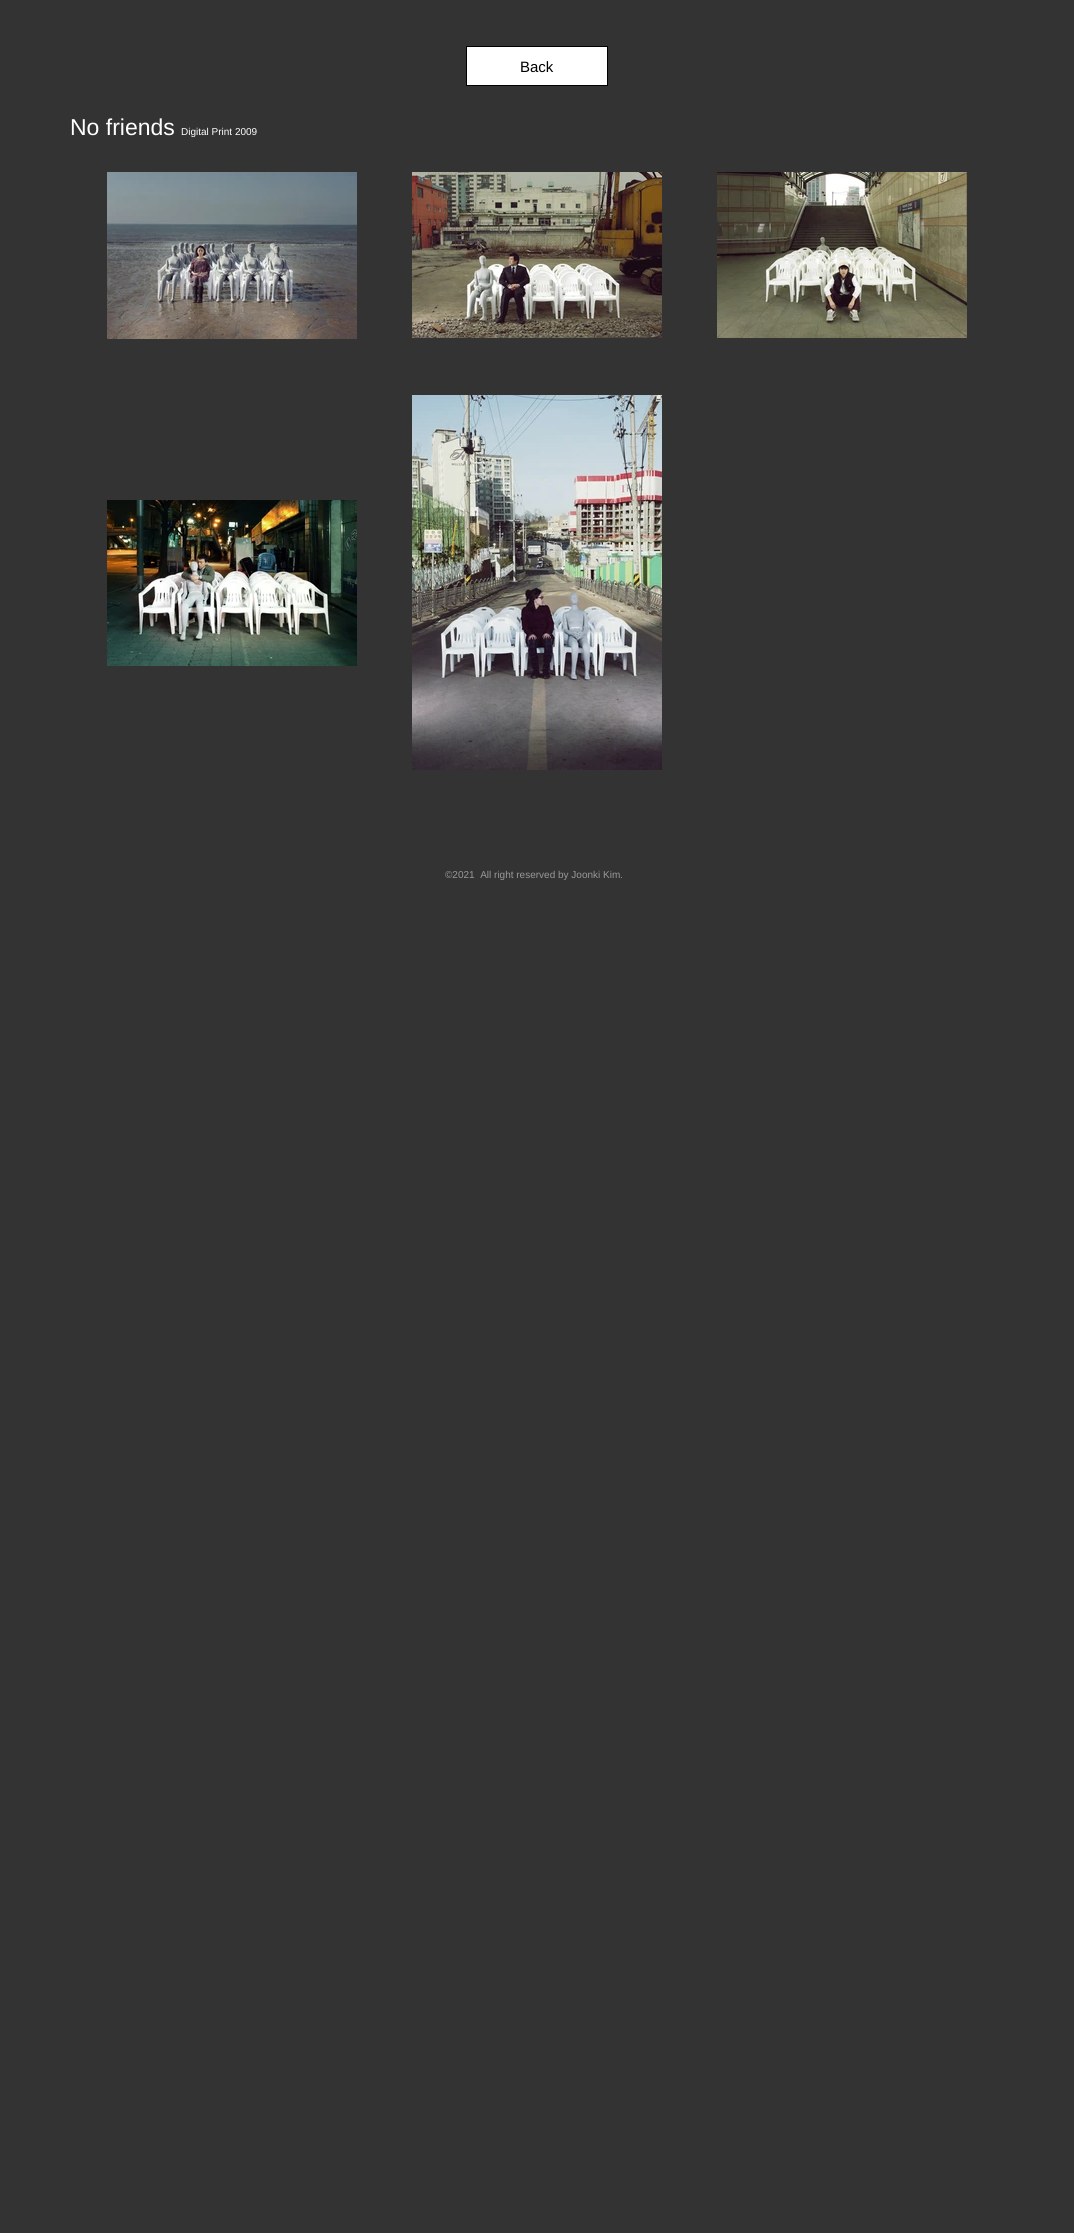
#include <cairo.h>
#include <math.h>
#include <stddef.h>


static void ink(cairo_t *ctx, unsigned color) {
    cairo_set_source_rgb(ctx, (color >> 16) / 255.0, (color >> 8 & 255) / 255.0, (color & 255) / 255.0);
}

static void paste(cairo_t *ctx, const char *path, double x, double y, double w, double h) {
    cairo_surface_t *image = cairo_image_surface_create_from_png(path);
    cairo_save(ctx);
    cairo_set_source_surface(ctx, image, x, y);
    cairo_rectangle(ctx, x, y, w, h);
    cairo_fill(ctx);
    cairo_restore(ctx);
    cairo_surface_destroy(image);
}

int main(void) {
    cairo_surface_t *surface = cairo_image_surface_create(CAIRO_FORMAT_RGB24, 1074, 2233);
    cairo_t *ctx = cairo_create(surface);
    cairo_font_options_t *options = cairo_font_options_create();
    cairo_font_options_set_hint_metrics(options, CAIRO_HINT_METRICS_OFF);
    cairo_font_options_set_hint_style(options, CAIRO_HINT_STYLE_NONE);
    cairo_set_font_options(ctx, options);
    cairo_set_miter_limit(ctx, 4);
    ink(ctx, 0x333333);
    cairo_paint(ctx);
    ink(ctx, 0xFFFFFF);
    cairo_rectangle(ctx, 466.5, 46.5, 141, 39);
    cairo_fill_preserve(ctx);
    ink(ctx, 0x000000);
    cairo_set_line_width(ctx, 1);
    cairo_stroke(ctx);
    cairo_select_font_face(ctx, "Liberation Sans", CAIRO_FONT_SLANT_NORMAL, CAIRO_FONT_WEIGHT_NORMAL);
    cairo_set_font_size(ctx, 15);
    cairo_move_to(ctx, 520, 72);
    cairo_show_text(ctx, "Back");
    cairo_set_font_size(ctx, 23);
    ink(ctx, 0xFFFFFF);
    cairo_move_to(ctx, 70, 135);
    cairo_show_text(ctx, "No friends");
    cairo_set_font_size(ctx, 10);
    cairo_move_to(ctx, 181, 135);
    cairo_show_text(ctx, "Digital Print 2009");
    paste(ctx, "media/1.png", 107, 172, 250, 167);
    paste(ctx, "media/2.png", 412, 172, 250, 166);
    paste(ctx, "media/3.png", 717, 172, 250, 166);
    paste(ctx, "media/4.png", 107, 500, 250, 166);
    paste(ctx, "media/5.png", 412, 395, 250, 375);
    ink(ctx, 0x999999);
    cairo_move_to(ctx, 445, 878);
    cairo_show_text(ctx, "©2021  All right reserved by Joonki Kim.");
    cairo_surface_write_to_png(surface, "image.png");
    cairo_font_options_destroy(options);
    cairo_destroy(ctx);
    cairo_surface_destroy(surface);
    return 0;
}
